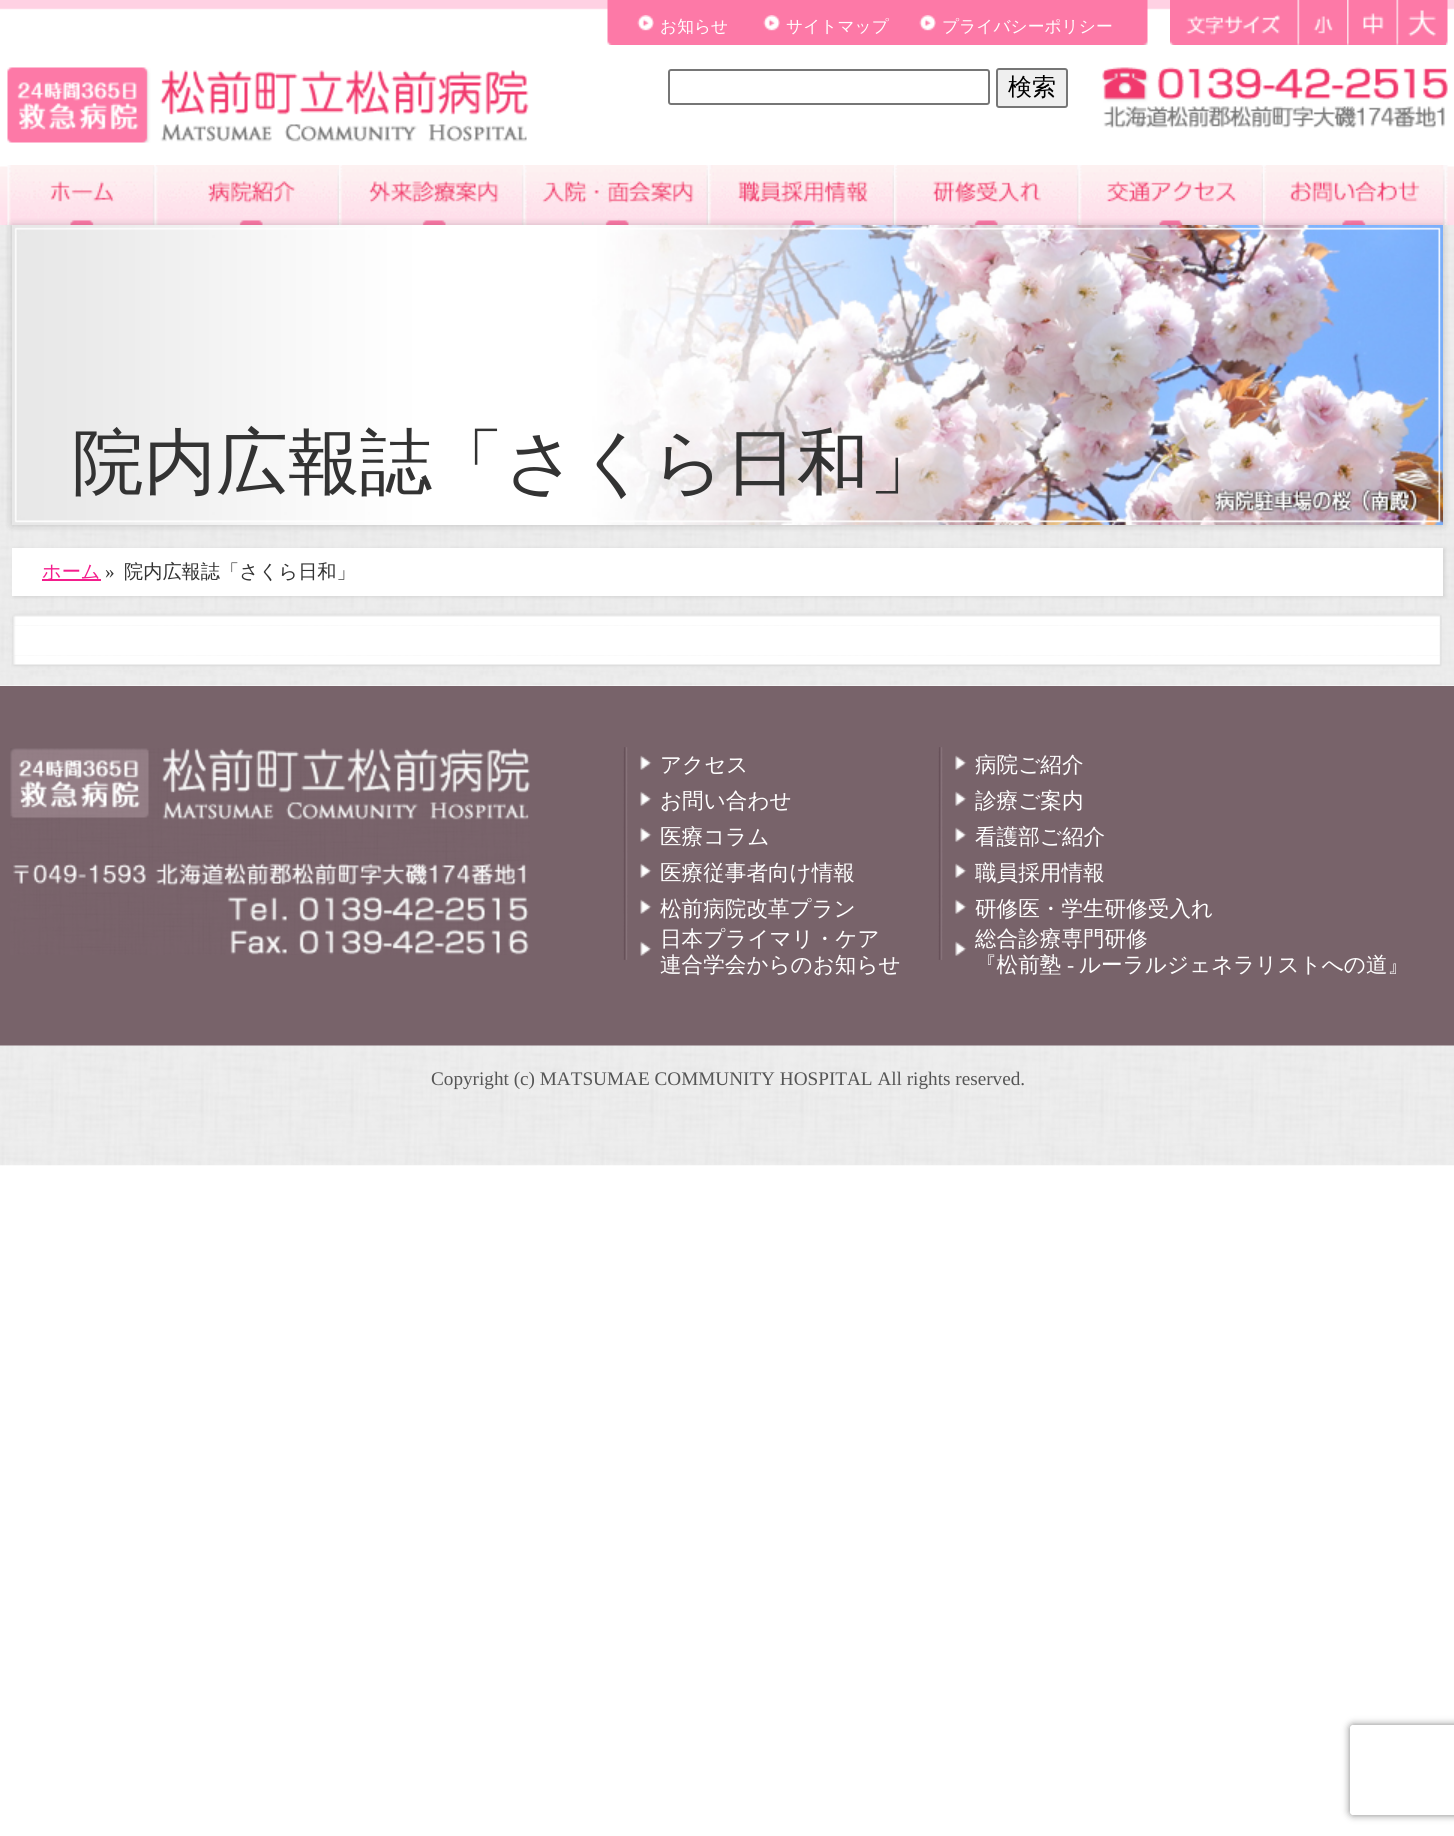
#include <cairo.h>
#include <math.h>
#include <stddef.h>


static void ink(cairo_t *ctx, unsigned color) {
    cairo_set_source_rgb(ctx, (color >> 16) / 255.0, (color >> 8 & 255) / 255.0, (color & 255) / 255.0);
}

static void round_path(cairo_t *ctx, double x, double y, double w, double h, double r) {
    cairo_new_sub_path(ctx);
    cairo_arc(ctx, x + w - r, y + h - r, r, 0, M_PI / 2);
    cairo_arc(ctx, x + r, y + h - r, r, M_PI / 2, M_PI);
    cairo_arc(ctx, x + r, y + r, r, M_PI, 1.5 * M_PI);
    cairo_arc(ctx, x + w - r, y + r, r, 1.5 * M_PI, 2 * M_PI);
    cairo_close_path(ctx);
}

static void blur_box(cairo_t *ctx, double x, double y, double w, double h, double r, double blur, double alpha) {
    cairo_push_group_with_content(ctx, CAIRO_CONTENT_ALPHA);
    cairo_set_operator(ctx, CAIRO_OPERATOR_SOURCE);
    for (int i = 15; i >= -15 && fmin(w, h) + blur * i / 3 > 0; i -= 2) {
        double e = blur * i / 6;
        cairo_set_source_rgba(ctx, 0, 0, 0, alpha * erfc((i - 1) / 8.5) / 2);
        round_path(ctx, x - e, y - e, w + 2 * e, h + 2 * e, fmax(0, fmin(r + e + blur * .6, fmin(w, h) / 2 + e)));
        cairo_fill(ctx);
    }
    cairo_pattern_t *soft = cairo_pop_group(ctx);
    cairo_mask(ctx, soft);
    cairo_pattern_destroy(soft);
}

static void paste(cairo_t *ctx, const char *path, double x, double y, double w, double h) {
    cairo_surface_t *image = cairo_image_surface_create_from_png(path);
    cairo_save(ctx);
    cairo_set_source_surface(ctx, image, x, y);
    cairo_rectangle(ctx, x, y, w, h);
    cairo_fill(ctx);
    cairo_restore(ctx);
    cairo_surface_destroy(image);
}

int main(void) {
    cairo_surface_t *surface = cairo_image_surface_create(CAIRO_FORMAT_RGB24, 1454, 1836);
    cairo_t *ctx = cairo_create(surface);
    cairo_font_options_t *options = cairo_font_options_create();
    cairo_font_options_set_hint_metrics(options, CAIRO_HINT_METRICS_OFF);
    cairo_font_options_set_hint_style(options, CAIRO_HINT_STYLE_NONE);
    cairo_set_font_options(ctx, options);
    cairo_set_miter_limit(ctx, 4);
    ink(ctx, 0xFFFFFF);
    cairo_paint(ctx);
    paste(ctx, "media/1.png", 0, 0, 1454, 225);
    paste(ctx, "media/2.png", 607, 0, 541, 45);
    paste(ctx, "media/3.png", 637, 15, 17, 16);
    cairo_select_font_face(ctx, "WenQuanYi Zen Hei Medium", CAIRO_FONT_SLANT_NORMAL, CAIRO_FONT_WEIGHT_NORMAL);
    cairo_set_font_size(ctx, 16.75);
    ink(ctx, 0xFFFFFF);
    cairo_move_to(ctx, 660, 32);
    cairo_show_text(ctx, "お知らせ");
    paste(ctx, "media/4.png", 763, 15, 17, 16);
    cairo_move_to(ctx, 786, 32);
    cairo_show_text(ctx, "サイトマップ");
    paste(ctx, "media/4.png", 919, 15, 17, 16);
    cairo_move_to(ctx, 942, 32);
    cairo_show_text(ctx, "プライバシーポリシー");
    paste(ctx, "media/5.png", 1170, 0, 278, 45);
    paste(ctx, "media/6.png", 1297, 0, 36, 45);
    paste(ctx, "media/7.png", 1347, 0, 37, 45);
    paste(ctx, "media/8.png", 1396, 0, 50, 45);
    paste(ctx, "media/9.png", 7, 67, 522, 76);
    round_path(ctx, 669, 70, 320, 34, 2);
    ink(ctx, 0x767676);
    cairo_stroke(ctx);
    ink(ctx, 0xEFEFEF);
    round_path(ctx, 997, 69, 70, 38, 2);
    cairo_fill_preserve(ctx);
    ink(ctx, 0x767676);
    cairo_stroke(ctx);
    cairo_set_font_size(ctx, 24);
    ink(ctx, 0x000000);
    cairo_move_to(ctx, 1008, 95);
    cairo_show_text(ctx, "検索");
    paste(ctx, "media/10.png", 1102, 67, 346, 61);
    paste(ctx, "media/11.png", 7, 165, 148, 60);
    paste(ctx, "media/12.png", 154, 165, 185, 60);
    paste(ctx, "media/13.png", 339, 165, 185, 60);
    paste(ctx, "media/14.png", 523, 165, 185, 60);
    paste(ctx, "media/15.png", 708, 165, 186, 60);
    paste(ctx, "media/16.png", 894, 165, 185, 60);
    paste(ctx, "media/17.png", 1078, 165, 185, 60);
    paste(ctx, "media/18.png", 1263, 165, 185, 60);
    paste(ctx, "media/19.png", 0, 225, 1454, 461);
    ink(ctx, 0x000000);
    blur_box(ctx, 12, 225, 1431, 300, 0, 4, 0.1);
    blur_box(ctx, 12, 225, 1431, 300, 0, 4, 0.1);
    paste(ctx, "media/20.png", 12, 225, 1431, 300);
    cairo_set_font_size(ctx, 72);
    ink(ctx, 0x333333);
    cairo_move_to(ctx, 72, 487);
    cairo_show_text(ctx, "院内広報誌「さくら日和」");
    ink(ctx, 0x000000);
    blur_box(ctx, 14, 549, 1431, 48, 0, 2, 0.1);
    ink(ctx, 0xFFFFFF);
    cairo_rectangle(ctx, 12, 548, 1431, 48);
    cairo_fill(ctx);
    ink(ctx, 0xF41D8C);
    cairo_rectangle(ctx, 42, 579, 59, 2);
    cairo_fill(ctx);
    cairo_set_font_size(ctx, 19.2);
    cairo_move_to(ctx, 42, 578);
    cairo_show_text(ctx, "ホーム");
    cairo_select_font_face(ctx, "Liberation Serif", CAIRO_FONT_SLANT_NORMAL, CAIRO_FONT_WEIGHT_NORMAL);
    ink(ctx, 0x333333);
    cairo_move_to(ctx, 105, 578);
    cairo_show_text(ctx, "»");
    cairo_select_font_face(ctx, "WenQuanYi Zen Hei Medium", CAIRO_FONT_SLANT_NORMAL, CAIRO_FONT_WEIGHT_NORMAL);
    cairo_move_to(ctx, 124, 578);
    cairo_show_text(ctx, "院内広報誌「さくら日和」");
    paste(ctx, "media/21.png", 10, 610, 1432, 16);
    paste(ctx, "media/22.png", 8, 625, 1434, 31);
    paste(ctx, "media/23.png", 11, 655, 1431, 15);
    ink(ctx, 0x78636A);
    cairo_rectangle(ctx, 0, 686, 1454, 360);
    cairo_fill(ctx);
    paste(ctx, "media/24.png", 10, 748, 520, 207);
    paste(ctx, "media/25.png", 623, 747, 5, 213);
    paste(ctx, "media/26.png", 640, 755, 12, 15);
    cairo_set_font_size(ctx, 21.6);
    ink(ctx, 0xFFFFFF);
    cairo_move_to(ctx, 660, 772);
    cairo_show_text(ctx, "アクセス");
    paste(ctx, "media/26.png", 640, 791, 12, 15);
    cairo_move_to(ctx, 660, 808);
    cairo_show_text(ctx, "お問い合わせ");
    paste(ctx, "media/26.png", 640, 827, 12, 15);
    cairo_move_to(ctx, 660, 844);
    cairo_show_text(ctx, "医療コラム");
    paste(ctx, "media/26.png", 640, 863, 12, 15);
    cairo_move_to(ctx, 660, 880);
    cairo_show_text(ctx, "医療従事者向け情報");
    paste(ctx, "media/26.png", 640, 899, 12, 15);
    cairo_move_to(ctx, 660, 916);
    cairo_show_text(ctx, "松前病院改革プラン");
    paste(ctx, "media/26.png", 640, 941, 12, 15);
    cairo_move_to(ctx, 660, 946);
    cairo_show_text(ctx, "日本プライマリ・ケア");
    cairo_move_to(ctx, 660, 972);
    cairo_show_text(ctx, "連合学会からのお知らせ");
    paste(ctx, "media/27.png", 938, 747, 5, 213);
    paste(ctx, "media/28.png", 955, 755, 12, 15);
    cairo_move_to(ctx, 975, 772);
    cairo_show_text(ctx, "病院ご紹介");
    paste(ctx, "media/28.png", 955, 791, 12, 15);
    cairo_move_to(ctx, 975, 808);
    cairo_show_text(ctx, "診療ご案内");
    paste(ctx, "media/28.png", 955, 827, 12, 15);
    cairo_move_to(ctx, 975, 844);
    cairo_show_text(ctx, "看護部ご紹介");
    paste(ctx, "media/28.png", 955, 863, 12, 15);
    cairo_move_to(ctx, 975, 880);
    cairo_show_text(ctx, "職員採用情報");
    paste(ctx, "media/28.png", 955, 899, 12, 15);
    cairo_move_to(ctx, 975, 916);
    cairo_show_text(ctx, "研修医・学生研修受入れ");
    paste(ctx, "media/28.png", 955, 941, 12, 15);
    cairo_move_to(ctx, 975, 946);
    cairo_show_text(ctx, "総合診療専門研修");
    cairo_move_to(ctx, 975, 972);
    cairo_show_text(ctx, "『松前塾");
    cairo_select_font_face(ctx, "Liberation Serif", CAIRO_FONT_SLANT_NORMAL, CAIRO_FONT_WEIGHT_NORMAL);
    cairo_move_to(ctx, 1067, 972);
    cairo_show_text(ctx, "-");
    cairo_select_font_face(ctx, "WenQuanYi Zen Hei Medium", CAIRO_FONT_SLANT_NORMAL, CAIRO_FONT_WEIGHT_NORMAL);
    cairo_move_to(ctx, 1079, 972);
    cairo_show_text(ctx, "ルーラルジェネラリストへの道』");
    paste(ctx, "media/29.png", 0, 1045, 1454, 121);
    cairo_select_font_face(ctx, "Liberation Serif", CAIRO_FONT_SLANT_NORMAL, CAIRO_FONT_WEIGHT_NORMAL);
    cairo_set_font_size(ctx, 19.2);
    ink(ctx, 0x555555);
    cairo_move_to(ctx, 431, 1085);
    cairo_show_text(ctx, "Copyright (c) MATSUMAE COMMUNITY HOSPITAL All rights reserved.");
    cairo_save(ctx);
    cairo_set_fill_rule(ctx, CAIRO_FILL_RULE_EVEN_ODD);
    cairo_new_path(ctx);
    cairo_move_to(ctx, 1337, 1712);
    cairo_line_to(ctx, 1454, 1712);
    cairo_line_to(ctx, 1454, 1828);
    cairo_line_to(ctx, 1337, 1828);
    cairo_close_path(ctx);
    cairo_move_to(ctx, 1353, 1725);
    cairo_line_to(ctx, 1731, 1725);
    cairo_curve_to(ctx, 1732.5, 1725, 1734, 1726.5, 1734, 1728);
    cairo_line_to(ctx, 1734, 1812);
    cairo_curve_to(ctx, 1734, 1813.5, 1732.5, 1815, 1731, 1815);
    cairo_line_to(ctx, 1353, 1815);
    cairo_curve_to(ctx, 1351.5, 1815, 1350, 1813.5, 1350, 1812);
    cairo_line_to(ctx, 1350, 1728);
    cairo_curve_to(ctx, 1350, 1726.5, 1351.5, 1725, 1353, 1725);
    cairo_close_path(ctx);
    cairo_clip(ctx);
    ink(ctx, 0x808080);
    blur_box(ctx, 1350, 1725, 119, 90, 3, 4, 1);
    cairo_restore(ctx);
    cairo_surface_write_to_png(surface, "image.png");
    cairo_font_options_destroy(options);
    cairo_destroy(ctx);
    cairo_surface_destroy(surface);
    return 0;
}
